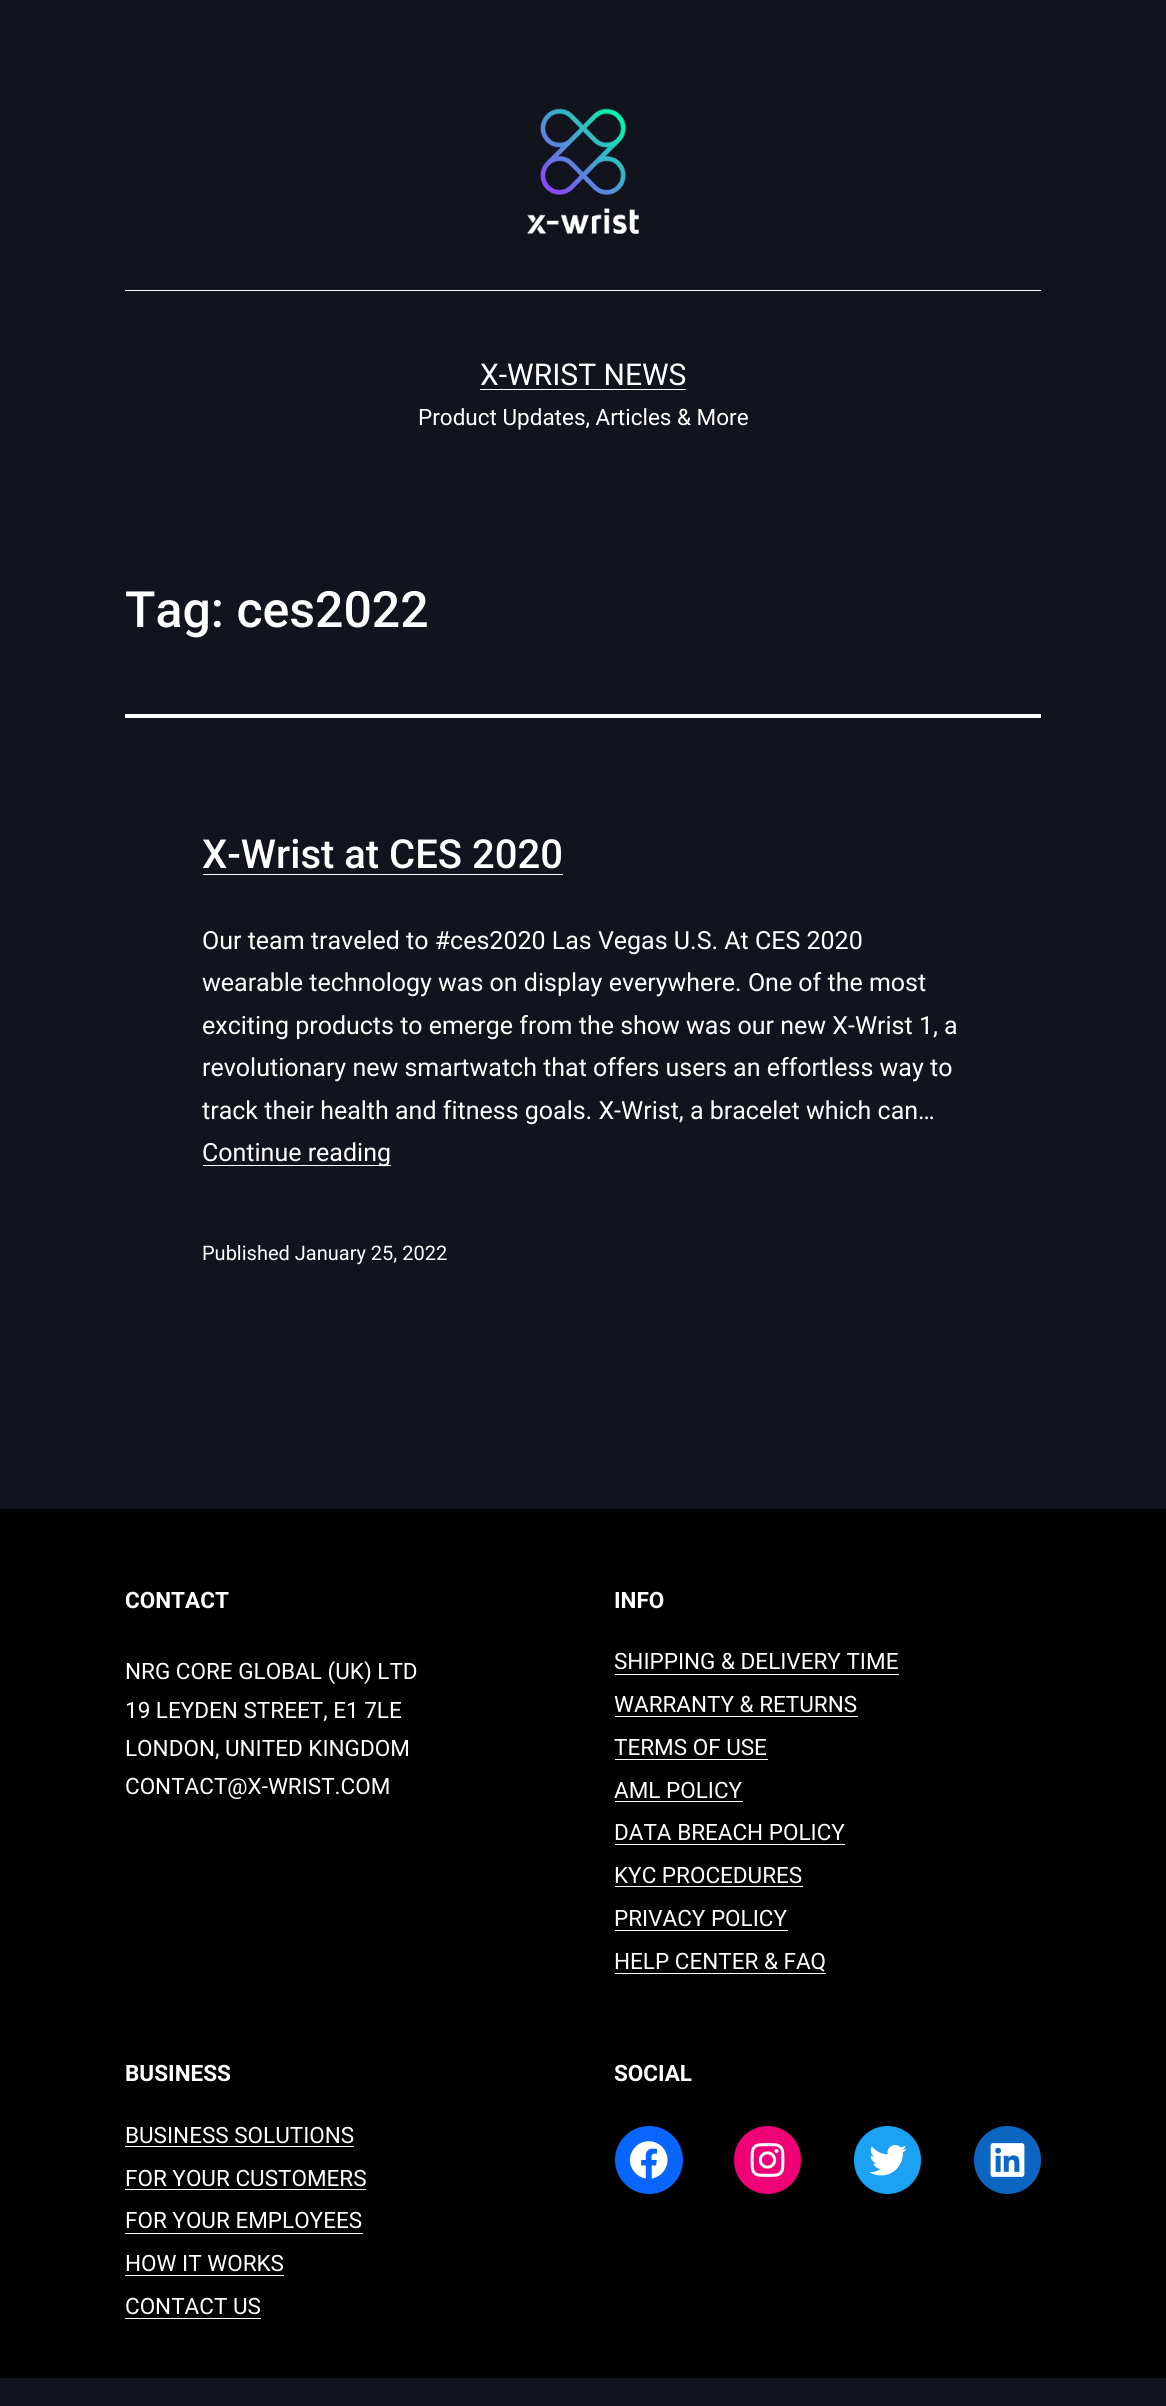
#include <cairo.h>
#include <math.h>
#include <stddef.h>

typedef struct { double x, y; const char *s; } line_t;

static void ink(cairo_t *ctx, unsigned color) {
    cairo_set_source_rgb(ctx, (color >> 16) / 255.0, (color >> 8 & 255) / 255.0, (color & 255) / 255.0);
}

static void round_path(cairo_t *ctx, double x, double y, double w, double h, double r) {
    cairo_new_sub_path(ctx);
    cairo_arc(ctx, x + w - r, y + h - r, r, 0, M_PI / 2);
    cairo_arc(ctx, x + r, y + h - r, r, M_PI / 2, M_PI);
    cairo_arc(ctx, x + r, y + r, r, M_PI, 1.5 * M_PI);
    cairo_arc(ctx, x + w - r, y + r, r, 1.5 * M_PI, 2 * M_PI);
    cairo_close_path(ctx);
}

static void paste(cairo_t *ctx, const char *path, double x, double y, double w, double h) {
    cairo_surface_t *image = cairo_image_surface_create_from_png(path);
    cairo_save(ctx);
    cairo_set_source_surface(ctx, image, x, y);
    cairo_rectangle(ctx, x, y, w, h);
    cairo_fill(ctx);
    cairo_restore(ctx);
    cairo_surface_destroy(image);
}

int main(void) {
    cairo_surface_t *surface = cairo_image_surface_create(CAIRO_FORMAT_RGB24, 1166, 2406);
    cairo_t *ctx = cairo_create(surface);
    cairo_font_options_t *options = cairo_font_options_create();
    cairo_font_options_set_hint_metrics(options, CAIRO_HINT_METRICS_OFF);
    cairo_font_options_set_hint_style(options, CAIRO_HINT_STYLE_NONE);
    cairo_set_font_options(ctx, options);
    cairo_set_miter_limit(ctx, 4);
    ink(ctx, 0x11141C);
    cairo_paint(ctx);
    ink(ctx, 0xFFFFFF);
    cairo_rectangle(ctx, 125, 290, 916, 1);
    cairo_fill(ctx);
    paste(ctx, "media/1.png", 527, 108, 112, 126);
    cairo_select_font_face(ctx, "Roboto", CAIRO_FONT_SLANT_NORMAL, CAIRO_FONT_WEIGHT_NORMAL);
    cairo_set_font_size(ctx, 30);
    cairo_move_to(ctx, 480, 385);
    cairo_show_text(ctx, "X-WRIST NEWS");
    cairo_rectangle(ctx, 480, 389, 206, 1);
    cairo_fill(ctx);
    cairo_set_font_size(ctx, 22.5);
    cairo_move_to(ctx, 418, 425);
    cairo_show_text(ctx, "Product Updates, Articles & More");
    cairo_rectangle(ctx, 125, 714, 916, 4);
    cairo_fill(ctx);
    cairo_select_font_face(ctx, "Roboto Medium", CAIRO_FONT_SLANT_NORMAL, CAIRO_FONT_WEIGHT_NORMAL);
    cairo_set_font_size(ctx, 50);
    cairo_move_to(ctx, 125, 627);
    cairo_show_text(ctx, "Tag: ces2022");
    cairo_set_font_size(ctx, 40);
    cairo_move_to(ctx, 202, 868);
    cairo_show_text(ctx, "X-Wrist at CES 2020");
    cairo_rectangle(ctx, 203, 874, 360, 1);
    cairo_fill(ctx);
    cairo_select_font_face(ctx, "Roboto", CAIRO_FONT_SLANT_NORMAL, CAIRO_FONT_WEIGHT_NORMAL);
    cairo_set_font_size(ctx, 25);
    {
        static const line_t items[] = {
            {202, 949, "Our team traveled to #ces2020 Las Vegas U.S. At CES 2020"},
            {202, 991, "wearable technology was on display everywhere. One of the most"},
            {202, 1034, "exciting products to emerge from the show was our new X-Wrist 1, a"},
            {202, 1076, "revolutionary new smartwatch that offers users an effortless way to"},
            {202, 1119, "track their health and fitness goals. X-Wrist, a bracelet which can…"},
        };
        for (size_t i = 0; i < sizeof items / sizeof *items; i++) {
            cairo_move_to(ctx, items[i].x, items[i].y);
            cairo_show_text(ctx, items[i].s);
        }
    }
    cairo_rectangle(ctx, 203, 1165, 188, 1);
    cairo_fill(ctx);
    cairo_move_to(ctx, 202, 1161);
    cairo_show_text(ctx, "Continue reading");
    cairo_set_font_size(ctx, 20);
    cairo_move_to(ctx, 202, 1260);
    cairo_show_text(ctx, "Published January 25, 2022");
    ink(ctx, 0x000000);
    cairo_rectangle(ctx, 0, 1509, 1166, 869);
    cairo_fill(ctx);
    cairo_select_font_face(ctx, "Roboto", CAIRO_FONT_SLANT_NORMAL, CAIRO_FONT_WEIGHT_BOLD);
    cairo_set_font_size(ctx, 22.5);
    ink(ctx, 0xFFFFFF);
    cairo_move_to(ctx, 125, 1608);
    cairo_show_text(ctx, "CONTACT");
    cairo_select_font_face(ctx, "Roboto", CAIRO_FONT_SLANT_NORMAL, CAIRO_FONT_WEIGHT_NORMAL);
    {
        static const line_t items[] = {
            {125, 1679, "NRG CORE GLOBAL (UK) LTD"},
            {125, 1718, "19 LEYDEN STREET, E1 7LE"},
            {125, 1756, "LONDON, UNITED KINGDOM"},
            {125, 1794, "CONTACT@X-WRIST.COM"},
        };
        for (size_t i = 0; i < sizeof items / sizeof *items; i++) {
            cairo_move_to(ctx, items[i].x, items[i].y);
            cairo_show_text(ctx, items[i].s);
        }
    }
    cairo_select_font_face(ctx, "Roboto", CAIRO_FONT_SLANT_NORMAL, CAIRO_FONT_WEIGHT_BOLD);
    cairo_move_to(ctx, 614, 1608);
    cairo_show_text(ctx, "INFO");
    cairo_select_font_face(ctx, "Roboto", CAIRO_FONT_SLANT_NORMAL, CAIRO_FONT_WEIGHT_NORMAL);
    cairo_move_to(ctx, 614, 1669);
    cairo_show_text(ctx, "SHIPPING & DELIVERY TIME");
    cairo_rectangle(ctx, 615, 1674, 284, 1);
    cairo_fill(ctx);
    cairo_move_to(ctx, 614, 1712);
    cairo_show_text(ctx, "WARRANTY & RETURNS");
    cairo_rectangle(ctx, 615, 1716, 243, 1);
    cairo_fill(ctx);
    cairo_move_to(ctx, 614, 1755);
    cairo_show_text(ctx, "TERMS OF USE");
    cairo_rectangle(ctx, 615, 1759, 153, 1);
    cairo_fill(ctx);
    cairo_move_to(ctx, 614, 1798);
    cairo_show_text(ctx, "AML POLICY");
    cairo_rectangle(ctx, 615, 1801, 128, 1);
    cairo_fill(ctx);
    cairo_move_to(ctx, 614, 1840);
    cairo_show_text(ctx, "DATA BREACH POLICY");
    cairo_rectangle(ctx, 615, 1844, 230, 1);
    cairo_fill(ctx);
    cairo_move_to(ctx, 614, 1883);
    cairo_show_text(ctx, "KYC PROCEDURES");
    cairo_rectangle(ctx, 615, 1886, 188, 1);
    cairo_fill(ctx);
    cairo_move_to(ctx, 614, 1926);
    cairo_show_text(ctx, "PRIVACY POLICY");
    cairo_rectangle(ctx, 615, 1930, 173, 1);
    cairo_fill(ctx);
    cairo_move_to(ctx, 614, 1969);
    cairo_show_text(ctx, "HELP CENTER & FAQ");
    cairo_rectangle(ctx, 615, 1973, 211, 1);
    cairo_fill(ctx);
    cairo_select_font_face(ctx, "Roboto", CAIRO_FONT_SLANT_NORMAL, CAIRO_FONT_WEIGHT_BOLD);
    cairo_move_to(ctx, 125, 2081);
    cairo_show_text(ctx, "BUSINESS");
    cairo_select_font_face(ctx, "Roboto", CAIRO_FONT_SLANT_NORMAL, CAIRO_FONT_WEIGHT_NORMAL);
    cairo_move_to(ctx, 125, 2143);
    cairo_show_text(ctx, "BUSINESS SOLUTIONS");
    cairo_rectangle(ctx, 125, 2146, 229, 1);
    cairo_fill(ctx);
    cairo_move_to(ctx, 125, 2186);
    cairo_show_text(ctx, "FOR YOUR CUSTOMERS");
    cairo_rectangle(ctx, 125, 2189, 241, 1);
    cairo_fill(ctx);
    cairo_move_to(ctx, 125, 2228);
    cairo_show_text(ctx, "FOR YOUR EMPLOYEES");
    cairo_rectangle(ctx, 125, 2233, 238, 1);
    cairo_fill(ctx);
    cairo_move_to(ctx, 125, 2271);
    cairo_show_text(ctx, "HOW IT WORKS");
    cairo_rectangle(ctx, 125, 2275, 159, 1);
    cairo_fill(ctx);
    cairo_move_to(ctx, 125, 2314);
    cairo_show_text(ctx, "CONTACT US");
    cairo_rectangle(ctx, 125, 2318, 136, 1);
    cairo_fill(ctx);
    cairo_select_font_face(ctx, "Roboto", CAIRO_FONT_SLANT_NORMAL, CAIRO_FONT_WEIGHT_BOLD);
    cairo_move_to(ctx, 614, 2081);
    cairo_show_text(ctx, "SOCIAL");
    ink(ctx, 0x0866FF);
    cairo_new_path(ctx);
    cairo_arc(ctx, 649, 2160, 34, 0, 2 * M_PI);
    cairo_fill(ctx);
    paste(ctx, "media/2.png", 630, 2141, 38, 38);
    ink(ctx, 0xF00075);
    round_path(ctx, 734, 2126, 67, 68, 33.5);
    cairo_fill(ctx);
    paste(ctx, "media/3.png", 750, 2143, 35, 34);
    ink(ctx, 0x1DA1F2);
    round_path(ctx, 854, 2126, 67, 68, 33.5);
    cairo_fill(ctx);
    paste(ctx, "media/4.png", 869, 2145, 38, 31);
    ink(ctx, 0x0D66C2);
    round_path(ctx, 974, 2126, 67, 68, 33.5);
    cairo_fill(ctx);
    paste(ctx, "media/5.png", 990, 2143, 35, 34);
    cairo_surface_write_to_png(surface, "image.png");
    cairo_font_options_destroy(options);
    cairo_destroy(ctx);
    cairo_surface_destroy(surface);
    return 0;
}
